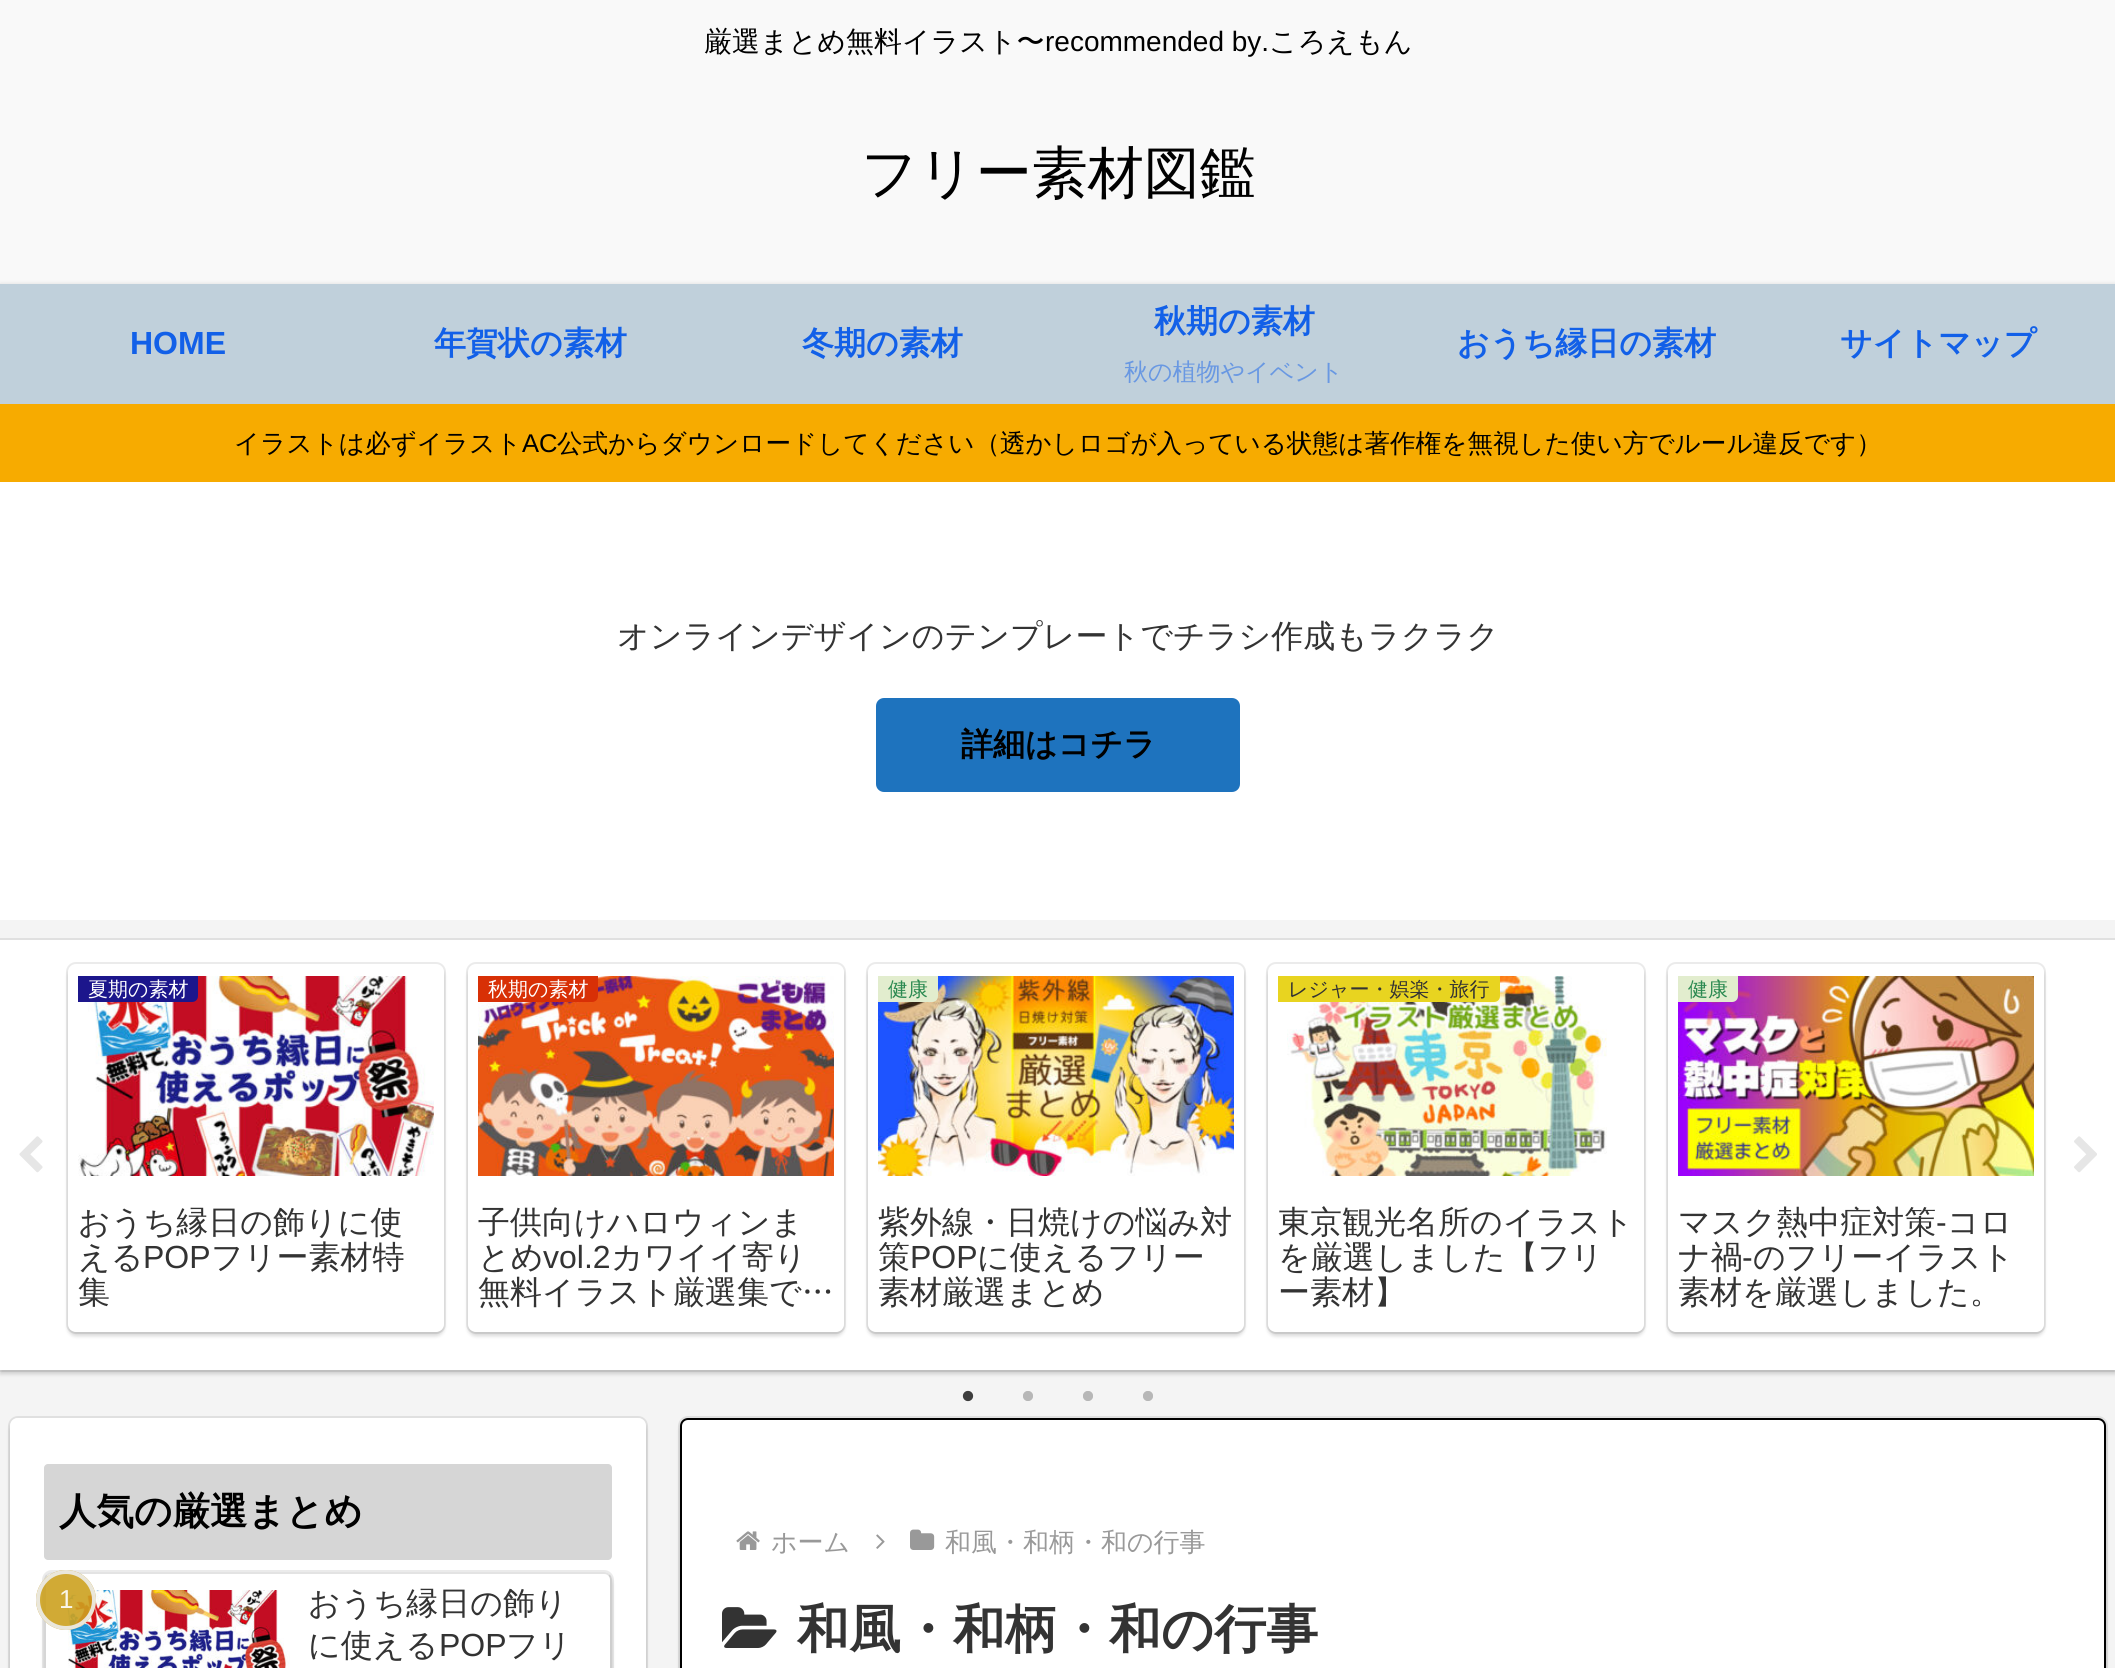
#include <cairo.h>
#include <math.h>
#include <stddef.h>

typedef struct { double x, y; const char *s; } line_t;

static void ink(cairo_t *ctx, unsigned color) {
    cairo_set_source_rgb(ctx, (color >> 16) / 255.0, (color >> 8 & 255) / 255.0, (color & 255) / 255.0);
}

static void round_path(cairo_t *ctx, double x, double y, double w, double h, double r) {
    cairo_new_sub_path(ctx);
    cairo_arc(ctx, x + w - r, y + h - r, r, 0, M_PI / 2);
    cairo_arc(ctx, x + r, y + h - r, r, M_PI / 2, M_PI);
    cairo_arc(ctx, x + r, y + r, r, M_PI, 1.5 * M_PI);
    cairo_arc(ctx, x + w - r, y + r, r, 1.5 * M_PI, 2 * M_PI);
    cairo_close_path(ctx);
}

static void blur_box(cairo_t *ctx, double x, double y, double w, double h, double r, double blur, double alpha) {
    cairo_push_group_with_content(ctx, CAIRO_CONTENT_ALPHA);
    cairo_set_operator(ctx, CAIRO_OPERATOR_SOURCE);
    for (int i = 15; i >= -15 && fmin(w, h) + blur * i / 3 > 0; i -= 2) {
        double e = blur * i / 6;
        cairo_set_source_rgba(ctx, 0, 0, 0, alpha * erfc((i - 1) / 8.5) / 2);
        round_path(ctx, x - e, y - e, w + 2 * e, h + 2 * e, fmax(0, fmin(r + e + blur * .6, fmin(w, h) / 2 + e)));
        cairo_fill(ctx);
    }
    cairo_pattern_t *soft = cairo_pop_group(ctx);
    cairo_mask(ctx, soft);
    cairo_pattern_destroy(soft);
}

static void paste(cairo_t *ctx, const char *path, double x, double y, double w, double h) {
    cairo_surface_t *image = cairo_image_surface_create_from_png(path);
    cairo_save(ctx);
    cairo_set_source_surface(ctx, image, x, y);
    cairo_rectangle(ctx, x, y, w, h);
    cairo_fill(ctx);
    cairo_restore(ctx);
    cairo_surface_destroy(image);
}

int main(void) {
    cairo_surface_t *surface = cairo_image_surface_create(CAIRO_FORMAT_RGB24, 2115, 1668);
    cairo_t *ctx = cairo_create(surface);
    cairo_font_options_t *options = cairo_font_options_create();
    cairo_font_options_set_hint_metrics(options, CAIRO_HINT_METRICS_OFF);
    cairo_font_options_set_hint_style(options, CAIRO_HINT_STYLE_NONE);
    cairo_set_font_options(ctx, options);
    cairo_set_miter_limit(ctx, 4);
    ink(ctx, 0xF4F4F4);
    cairo_paint(ctx);
    ink(ctx, 0xF9F9F9);
    cairo_rectangle(ctx, 0, 0, 2115, 284);
    cairo_fill(ctx);
    cairo_select_font_face(ctx, "WenQuanYi Zen Hei Medium", CAIRO_FONT_SLANT_NORMAL, CAIRO_FONT_WEIGHT_NORMAL);
    cairo_set_font_size(ctx, 28);
    ink(ctx, 0x000000);
    cairo_move_to(ctx, 704, 51);
    cairo_show_text(ctx, "厳選まとめ無料イラスト〜");
    cairo_select_font_face(ctx, "Liberation Sans", CAIRO_FONT_SLANT_NORMAL, CAIRO_FONT_WEIGHT_NORMAL);
    cairo_move_to(ctx, 1045, 51);
    cairo_show_text(ctx, "recommended by.");
    cairo_select_font_face(ctx, "WenQuanYi Zen Hei Medium", CAIRO_FONT_SLANT_NORMAL, CAIRO_FONT_WEIGHT_NORMAL);
    cairo_move_to(ctx, 1269, 51);
    cairo_show_text(ctx, "ころえもん");
    cairo_set_font_size(ctx, 56);
    cairo_move_to(ctx, 861, 192);
    cairo_show_text(ctx, "フリー素材図鑑");
    ink(ctx, 0x000000);
    blur_box(ctx, 0, 286, 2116, 120, 0, 3, 0.25);
    ink(ctx, 0xC0D0DB);
    cairo_rectangle(ctx, 0, 284, 2115, 120);
    cairo_fill(ctx);
    cairo_select_font_face(ctx, "Liberation Sans", CAIRO_FONT_SLANT_NORMAL, CAIRO_FONT_WEIGHT_BOLD);
    cairo_set_font_size(ctx, 32);
    ink(ctx, 0x1260E8);
    cairo_move_to(ctx, 130, 354);
    cairo_show_text(ctx, "HOME");
    cairo_select_font_face(ctx, "WenQuanYi Zen Hei", CAIRO_FONT_SLANT_NORMAL, CAIRO_FONT_WEIGHT_BOLD);
    {
        static const line_t items[] = {
            {434, 354, "年賀状の素材"},
            {802, 354, "冬期の素材"},
            {1154, 332, "秋期の素材"},
        };
        for (size_t i = 0; i < sizeof items / sizeof *items; i++) {
            cairo_move_to(ctx, items[i].x, items[i].y);
            cairo_show_text(ctx, items[i].s);
        }
    }
    cairo_select_font_face(ctx, "WenQuanYi Zen Hei Medium", CAIRO_FONT_SLANT_NORMAL, CAIRO_FONT_WEIGHT_NORMAL);
    cairo_set_font_size(ctx, 24);
    ink(ctx, 0x6998E2);
    cairo_move_to(ctx, 1124, 380);
    cairo_show_text(ctx, "秋の植物やイベント");
    cairo_select_font_face(ctx, "WenQuanYi Zen Hei", CAIRO_FONT_SLANT_NORMAL, CAIRO_FONT_WEIGHT_BOLD);
    cairo_set_font_size(ctx, 32);
    ink(ctx, 0x1260E8);
    cairo_move_to(ctx, 1457, 354);
    cairo_show_text(ctx, "おうち縁日の素材");
    cairo_move_to(ctx, 1840, 354);
    cairo_show_text(ctx, "サイトマップ");
    ink(ctx, 0xF7AB00);
    cairo_rectangle(ctx, 0, 404, 2115, 78);
    cairo_fill(ctx);
    cairo_select_font_face(ctx, "WenQuanYi Zen Hei Medium", CAIRO_FONT_SLANT_NORMAL, CAIRO_FONT_WEIGHT_NORMAL);
    cairo_set_font_size(ctx, 25.6);
    ink(ctx, 0x000000);
    cairo_move_to(ctx, 234, 452);
    cairo_show_text(ctx, "イラストは必ずイラスト");
    cairo_select_font_face(ctx, "Liberation Sans", CAIRO_FONT_SLANT_NORMAL, CAIRO_FONT_WEIGHT_NORMAL);
    cairo_move_to(ctx, 522, 452);
    cairo_show_text(ctx, "AC");
    cairo_select_font_face(ctx, "WenQuanYi Zen Hei Medium", CAIRO_FONT_SLANT_NORMAL, CAIRO_FONT_WEIGHT_NORMAL);
    cairo_move_to(ctx, 557, 452);
    cairo_show_text(ctx, "公式からダウンロードしてください（透かしロゴが入っている状態は著作権を無視した使い方でルール違反です）");
    ink(ctx, 0xFFFFFF);
    cairo_rectangle(ctx, 0, 482, 2115, 438);
    cairo_fill(ctx);
    cairo_set_font_size(ctx, 32);
    ink(ctx, 0x333333);
    cairo_move_to(ctx, 617, 647);
    cairo_show_text(ctx, "オンラインデザインのテンプレートでチラシ作成もラクラク");
    ink(ctx, 0x1E73BE);
    round_path(ctx, 876, 698, 364, 94, 8);
    cairo_fill(ctx);
    cairo_select_font_face(ctx, "WenQuanYi Zen Hei", CAIRO_FONT_SLANT_NORMAL, CAIRO_FONT_WEIGHT_BOLD);
    ink(ctx, 0x000000);
    cairo_move_to(ctx, 961, 755);
    cairo_show_text(ctx, "詳細はコチラ");
    cairo_rectangle(ctx, -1, 939, 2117, 432);
    ink(ctx, 0xE0E0E0);
    cairo_stroke(ctx);
    ink(ctx, 0x000000);
    blur_box(ctx, 0, 944, 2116, 430, 0, 2, 0.16);
    ink(ctx, 0xFFFFFF);
    cairo_rectangle(ctx, 0, 940, 2115, 430);
    cairo_fill(ctx);
    paste(ctx, "media/1.png", 19, 1136, 24, 37);
    round_path(ctx, 67, 963, 378, 370, 9);
    ink(ctx, 0xEBEBEB);
    cairo_stroke(ctx);
    cairo_save(ctx);
    cairo_set_fill_rule(ctx, CAIRO_FILL_RULE_EVEN_ODD);
    cairo_new_path(ctx);
    cairo_move_to(ctx, 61, 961);
    cairo_line_to(ctx, 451, 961);
    cairo_line_to(ctx, 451, 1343);
    cairo_line_to(ctx, 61, 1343);
    cairo_close_path(ctx);
    cairo_move_to(ctx, 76, 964);
    cairo_line_to(ctx, 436, 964);
    cairo_curve_to(ctx, 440.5, 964, 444, 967.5, 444, 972);
    cairo_line_to(ctx, 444, 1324);
    cairo_curve_to(ctx, 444, 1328.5, 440.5, 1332, 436, 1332);
    cairo_line_to(ctx, 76, 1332);
    cairo_curve_to(ctx, 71.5, 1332, 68, 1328.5, 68, 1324);
    cairo_line_to(ctx, 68, 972);
    cairo_curve_to(ctx, 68, 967.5, 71.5, 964, 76, 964);
    cairo_close_path(ctx);
    cairo_clip(ctx);
    ink(ctx, 0x000000);
    blur_box(ctx, 68, 968, 376, 368, 8, 2, 0.16);
    cairo_restore(ctx);
    paste(ctx, "media/2.png", 78, 976, 356, 200);
    ink(ctx, 0x1C168C);
    cairo_new_path(ctx);
    cairo_move_to(ctx, 78, 976);
    cairo_line_to(ctx, 198, 976);
    cairo_line_to(ctx, 198, 996);
    cairo_curve_to(ctx, 198, 999.5, 195.5, 1002, 192, 1002);
    cairo_line_to(ctx, 78, 1002);
    cairo_close_path(ctx);
    cairo_fill(ctx);
    cairo_select_font_face(ctx, "WenQuanYi Zen Hei Medium", CAIRO_FONT_SLANT_NORMAL, CAIRO_FONT_WEIGHT_NORMAL);
    cairo_set_font_size(ctx, 20);
    ink(ctx, 0xFFFFFF);
    cairo_move_to(ctx, 88, 996);
    cairo_show_text(ctx, "夏期の素材");
    cairo_set_font_size(ctx, 32);
    ink(ctx, 0x333333);
    cairo_move_to(ctx, 78, 1233);
    cairo_show_text(ctx, "おうち縁日の飾りに使");
    cairo_move_to(ctx, 78, 1268);
    cairo_show_text(ctx, "える");
    cairo_select_font_face(ctx, "Liberation Sans", CAIRO_FONT_SLANT_NORMAL, CAIRO_FONT_WEIGHT_NORMAL);
    cairo_move_to(ctx, 143, 1268);
    cairo_show_text(ctx, "POP");
    cairo_select_font_face(ctx, "WenQuanYi Zen Hei Medium", CAIRO_FONT_SLANT_NORMAL, CAIRO_FONT_WEIGHT_NORMAL);
    cairo_move_to(ctx, 211, 1268);
    cairo_show_text(ctx, "フリー素材特");
    cairo_move_to(ctx, 78, 1303);
    cairo_show_text(ctx, "集");
    round_path(ctx, 467, 963, 378, 370, 9);
    ink(ctx, 0xEBEBEB);
    cairo_stroke(ctx);
    cairo_save(ctx);
    cairo_set_fill_rule(ctx, CAIRO_FILL_RULE_EVEN_ODD);
    cairo_new_path(ctx);
    cairo_move_to(ctx, 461, 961);
    cairo_line_to(ctx, 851, 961);
    cairo_line_to(ctx, 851, 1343);
    cairo_line_to(ctx, 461, 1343);
    cairo_close_path(ctx);
    cairo_move_to(ctx, 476, 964);
    cairo_line_to(ctx, 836, 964);
    cairo_curve_to(ctx, 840.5, 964, 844, 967.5, 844, 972);
    cairo_line_to(ctx, 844, 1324);
    cairo_curve_to(ctx, 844, 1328.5, 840.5, 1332, 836, 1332);
    cairo_line_to(ctx, 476, 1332);
    cairo_curve_to(ctx, 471.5, 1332, 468, 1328.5, 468, 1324);
    cairo_line_to(ctx, 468, 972);
    cairo_curve_to(ctx, 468, 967.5, 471.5, 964, 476, 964);
    cairo_close_path(ctx);
    cairo_clip(ctx);
    ink(ctx, 0x000000);
    blur_box(ctx, 468, 968, 376, 368, 8, 2, 0.16);
    cairo_restore(ctx);
    paste(ctx, "media/3.png", 478, 976, 356, 200);
    ink(ctx, 0xD83006);
    cairo_new_path(ctx);
    cairo_move_to(ctx, 478, 976);
    cairo_line_to(ctx, 598, 976);
    cairo_line_to(ctx, 598, 996);
    cairo_curve_to(ctx, 598, 999.5, 595.5, 1002, 592, 1002);
    cairo_line_to(ctx, 478, 1002);
    cairo_close_path(ctx);
    cairo_fill(ctx);
    cairo_set_font_size(ctx, 20);
    ink(ctx, 0xFFFFFF);
    cairo_move_to(ctx, 488, 996);
    cairo_show_text(ctx, "秋期の素材");
    cairo_set_font_size(ctx, 32);
    ink(ctx, 0x333333);
    cairo_move_to(ctx, 478, 1233);
    cairo_show_text(ctx, "子供向けハロウィンま");
    cairo_move_to(ctx, 478, 1268);
    cairo_show_text(ctx, "とめ");
    cairo_select_font_face(ctx, "Liberation Sans", CAIRO_FONT_SLANT_NORMAL, CAIRO_FONT_WEIGHT_NORMAL);
    cairo_move_to(ctx, 543, 1268);
    cairo_show_text(ctx, "vol.2");
    cairo_select_font_face(ctx, "WenQuanYi Zen Hei Medium", CAIRO_FONT_SLANT_NORMAL, CAIRO_FONT_WEIGHT_NORMAL);
    cairo_move_to(ctx, 611, 1268);
    cairo_show_text(ctx, "カワイイ寄り");
    cairo_move_to(ctx, 478, 1303);
    cairo_show_text(ctx, "無料イラスト厳選集で…");
    round_path(ctx, 867, 963, 378, 370, 9);
    ink(ctx, 0xEBEBEB);
    cairo_stroke(ctx);
    cairo_save(ctx);
    cairo_set_fill_rule(ctx, CAIRO_FILL_RULE_EVEN_ODD);
    cairo_new_path(ctx);
    cairo_move_to(ctx, 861, 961);
    cairo_line_to(ctx, 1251, 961);
    cairo_line_to(ctx, 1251, 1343);
    cairo_line_to(ctx, 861, 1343);
    cairo_close_path(ctx);
    cairo_move_to(ctx, 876, 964);
    cairo_line_to(ctx, 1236, 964);
    cairo_curve_to(ctx, 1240.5, 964, 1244, 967.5, 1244, 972);
    cairo_line_to(ctx, 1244, 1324);
    cairo_curve_to(ctx, 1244, 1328.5, 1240.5, 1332, 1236, 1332);
    cairo_line_to(ctx, 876, 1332);
    cairo_curve_to(ctx, 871.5, 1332, 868, 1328.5, 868, 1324);
    cairo_line_to(ctx, 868, 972);
    cairo_curve_to(ctx, 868, 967.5, 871.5, 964, 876, 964);
    cairo_close_path(ctx);
    cairo_clip(ctx);
    ink(ctx, 0x000000);
    blur_box(ctx, 868, 968, 376, 368, 8, 2, 0.16);
    cairo_restore(ctx);
    paste(ctx, "media/4.png", 878, 976, 356, 200);
    ink(ctx, 0xE2EDCE);
    cairo_new_path(ctx);
    cairo_move_to(ctx, 878, 976);
    cairo_line_to(ctx, 938, 976);
    cairo_line_to(ctx, 938, 996);
    cairo_curve_to(ctx, 938, 999.5, 935.5, 1002, 932, 1002);
    cairo_line_to(ctx, 878, 1002);
    cairo_close_path(ctx);
    cairo_fill(ctx);
    cairo_set_font_size(ctx, 20);
    ink(ctx, 0x2A8950);
    cairo_move_to(ctx, 888, 996);
    cairo_show_text(ctx, "健康");
    cairo_set_font_size(ctx, 32);
    ink(ctx, 0x333333);
    cairo_move_to(ctx, 878, 1233);
    cairo_show_text(ctx, "紫外線・日焼けの悩み対");
    cairo_move_to(ctx, 878, 1268);
    cairo_show_text(ctx, "策");
    cairo_select_font_face(ctx, "Liberation Sans", CAIRO_FONT_SLANT_NORMAL, CAIRO_FONT_WEIGHT_NORMAL);
    cairo_move_to(ctx, 910, 1268);
    cairo_show_text(ctx, "POP");
    cairo_select_font_face(ctx, "WenQuanYi Zen Hei Medium", CAIRO_FONT_SLANT_NORMAL, CAIRO_FONT_WEIGHT_NORMAL);
    cairo_move_to(ctx, 977, 1268);
    cairo_show_text(ctx, "に使えるフリー");
    cairo_move_to(ctx, 878, 1303);
    cairo_show_text(ctx, "素材厳選まとめ");
    round_path(ctx, 1267, 963, 378, 370, 9);
    ink(ctx, 0xEBEBEB);
    cairo_stroke(ctx);
    cairo_save(ctx);
    cairo_set_fill_rule(ctx, CAIRO_FILL_RULE_EVEN_ODD);
    cairo_new_path(ctx);
    cairo_move_to(ctx, 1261, 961);
    cairo_line_to(ctx, 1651, 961);
    cairo_line_to(ctx, 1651, 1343);
    cairo_line_to(ctx, 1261, 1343);
    cairo_close_path(ctx);
    cairo_move_to(ctx, 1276, 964);
    cairo_line_to(ctx, 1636, 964);
    cairo_curve_to(ctx, 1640.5, 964, 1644, 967.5, 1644, 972);
    cairo_line_to(ctx, 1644, 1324);
    cairo_curve_to(ctx, 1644, 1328.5, 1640.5, 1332, 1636, 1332);
    cairo_line_to(ctx, 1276, 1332);
    cairo_curve_to(ctx, 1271.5, 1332, 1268, 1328.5, 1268, 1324);
    cairo_line_to(ctx, 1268, 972);
    cairo_curve_to(ctx, 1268, 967.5, 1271.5, 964, 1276, 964);
    cairo_close_path(ctx);
    cairo_clip(ctx);
    ink(ctx, 0x000000);
    blur_box(ctx, 1268, 968, 376, 368, 8, 2, 0.16);
    cairo_restore(ctx);
    paste(ctx, "media/5.png", 1287, 976, 320, 200);
    ink(ctx, 0xE8D420);
    cairo_new_path(ctx);
    cairo_move_to(ctx, 1278, 976);
    cairo_line_to(ctx, 1500, 976);
    cairo_line_to(ctx, 1500, 996);
    cairo_curve_to(ctx, 1500, 999.5, 1497.5, 1002, 1494, 1002);
    cairo_line_to(ctx, 1278, 1002);
    cairo_close_path(ctx);
    cairo_fill(ctx);
    cairo_set_font_size(ctx, 20);
    ink(ctx, 0x333333);
    cairo_move_to(ctx, 1288, 996);
    cairo_show_text(ctx, "レジャー・娯楽・旅行");
    cairo_set_font_size(ctx, 32);
    {
        static const line_t items[] = {
            {1278, 1233, "東京観光名所のイラスト"},
            {1278, 1268, "を厳選しました【フリ"},
            {1278, 1303, "ー素材】"},
        };
        for (size_t i = 0; i < sizeof items / sizeof *items; i++) {
            cairo_move_to(ctx, items[i].x, items[i].y);
            cairo_show_text(ctx, items[i].s);
        }
    }
    round_path(ctx, 1667, 963, 378, 370, 9);
    ink(ctx, 0xEBEBEB);
    cairo_stroke(ctx);
    cairo_save(ctx);
    cairo_set_fill_rule(ctx, CAIRO_FILL_RULE_EVEN_ODD);
    cairo_new_path(ctx);
    cairo_move_to(ctx, 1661, 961);
    cairo_line_to(ctx, 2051, 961);
    cairo_line_to(ctx, 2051, 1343);
    cairo_line_to(ctx, 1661, 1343);
    cairo_close_path(ctx);
    cairo_move_to(ctx, 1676, 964);
    cairo_line_to(ctx, 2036, 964);
    cairo_curve_to(ctx, 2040.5, 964, 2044, 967.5, 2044, 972);
    cairo_line_to(ctx, 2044, 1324);
    cairo_curve_to(ctx, 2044, 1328.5, 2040.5, 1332, 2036, 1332);
    cairo_line_to(ctx, 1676, 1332);
    cairo_curve_to(ctx, 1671.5, 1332, 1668, 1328.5, 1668, 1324);
    cairo_line_to(ctx, 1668, 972);
    cairo_curve_to(ctx, 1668, 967.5, 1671.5, 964, 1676, 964);
    cairo_close_path(ctx);
    cairo_clip(ctx);
    ink(ctx, 0x000000);
    blur_box(ctx, 1668, 968, 376, 368, 8, 2, 0.16);
    cairo_restore(ctx);
    paste(ctx, "media/6.png", 1678, 976, 356, 200);
    ink(ctx, 0xE2EDCE);
    cairo_new_path(ctx);
    cairo_move_to(ctx, 1678, 976);
    cairo_line_to(ctx, 1738, 976);
    cairo_line_to(ctx, 1738, 996);
    cairo_curve_to(ctx, 1738, 999.5, 1735.5, 1002, 1732, 1002);
    cairo_line_to(ctx, 1678, 1002);
    cairo_close_path(ctx);
    cairo_fill(ctx);
    cairo_set_font_size(ctx, 20);
    ink(ctx, 0x2A8950);
    cairo_move_to(ctx, 1688, 996);
    cairo_show_text(ctx, "健康");
    cairo_set_font_size(ctx, 32);
    ink(ctx, 0x333333);
    cairo_move_to(ctx, 1678, 1233);
    cairo_show_text(ctx, "マスク熱中症対策");
    cairo_select_font_face(ctx, "Liberation Sans", CAIRO_FONT_SLANT_NORMAL, CAIRO_FONT_WEIGHT_NORMAL);
    cairo_move_to(ctx, 1936, 1233);
    cairo_show_text(ctx, "-");
    cairo_select_font_face(ctx, "WenQuanYi Zen Hei Medium", CAIRO_FONT_SLANT_NORMAL, CAIRO_FONT_WEIGHT_NORMAL);
    cairo_move_to(ctx, 1947, 1233);
    cairo_show_text(ctx, "コロ");
    cairo_move_to(ctx, 1678, 1268);
    cairo_show_text(ctx, "ナ禍");
    cairo_select_font_face(ctx, "Liberation Sans", CAIRO_FONT_SLANT_NORMAL, CAIRO_FONT_WEIGHT_NORMAL);
    cairo_move_to(ctx, 1742, 1268);
    cairo_show_text(ctx, "-");
    cairo_select_font_face(ctx, "WenQuanYi Zen Hei Medium", CAIRO_FONT_SLANT_NORMAL, CAIRO_FONT_WEIGHT_NORMAL);
    cairo_move_to(ctx, 1753, 1268);
    cairo_show_text(ctx, "のフリーイラスト");
    cairo_save(ctx);
    cairo_rectangle(ctx, 1678, 1204, 356, 104);
    cairo_clip(ctx);
    cairo_move_to(ctx, 1678, 1303);
    cairo_show_text(ctx, "素材を厳選しました。");
    cairo_restore(ctx);
    paste(ctx, "media/7.png", 2074, 1136, 23, 37);
    paste(ctx, "media/8.png", 962, 1390, 12, 12);
    paste(ctx, "media/9.png", 1023, 1391, 10, 10);
    paste(ctx, "media/9.png", 1083, 1391, 10, 10);
    paste(ctx, "media/9.png", 1143, 1391, 10, 10);
    round_path(ctx, 9, 1417, 638, 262, 9);
    ink(ctx, 0xE0E0E0);
    cairo_stroke(ctx);
    ink(ctx, 0x000000);
    blur_box(ctx, 10, 1422, 636, 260, 8, 2, 0.16);
    ink(ctx, 0xFFFFFF);
    round_path(ctx, 11, 1419, 634, 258, 7);
    cairo_fill_preserve(ctx);
    cairo_stroke(ctx);
    ink(ctx, 0xD6D6D6);
    round_path(ctx, 44, 1464, 568, 96, 4);
    cairo_fill(ctx);
    cairo_select_font_face(ctx, "WenQuanYi Zen Hei", CAIRO_FONT_SLANT_NORMAL, CAIRO_FONT_WEIGHT_BOLD);
    cairo_set_font_size(ctx, 37.5);
    ink(ctx, 0x000000);
    cairo_move_to(ctx, 59, 1524);
    cairo_show_text(ctx, "人気の厳選まとめ");
    round_path(ctx, 43, 1571, 570, 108, 9);
    ink(ctx, 0xEBEBEB);
    cairo_stroke(ctx);
    cairo_save(ctx);
    cairo_set_fill_rule(ctx, CAIRO_FILL_RULE_EVEN_ODD);
    cairo_new_path(ctx);
    cairo_move_to(ctx, 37, 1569);
    cairo_line_to(ctx, 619, 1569);
    cairo_line_to(ctx, 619, 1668);
    cairo_line_to(ctx, 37, 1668);
    cairo_close_path(ctx);
    cairo_move_to(ctx, 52, 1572);
    cairo_line_to(ctx, 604, 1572);
    cairo_curve_to(ctx, 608.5, 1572, 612, 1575.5, 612, 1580);
    cairo_line_to(ctx, 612, 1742);
    cairo_curve_to(ctx, 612, 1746.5, 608.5, 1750, 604, 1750);
    cairo_line_to(ctx, 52, 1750);
    cairo_curve_to(ctx, 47.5, 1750, 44, 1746.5, 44, 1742);
    cairo_line_to(ctx, 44, 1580);
    cairo_curve_to(ctx, 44, 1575.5, 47.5, 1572, 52, 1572);
    cairo_close_path(ctx);
    cairo_clip(ctx);
    ink(ctx, 0x000000);
    blur_box(ctx, 44, 1576, 568, 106, 8, 2, 0.16);
    cairo_restore(ctx);
    cairo_new_path(ctx);
    cairo_move_to(ctx, 47, 1575);
    cairo_curve_to(ctx, 48.5, 1573.5, 50, 1573, 52, 1573);
    cairo_line_to(ctx, 604, 1573);
    cairo_curve_to(ctx, 606, 1573, 607.5, 1573.5, 609, 1575);
    ink(ctx, 0xE3E3E3);
    cairo_stroke(ctx);
    cairo_new_path(ctx);
    cairo_move_to(ctx, 609, 1575);
    cairo_curve_to(ctx, 610.5, 1576.5, 611, 1578, 611, 1580);
    cairo_line_to(ctx, 611, 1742);
    cairo_curve_to(ctx, 611, 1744, 610.5, 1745.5, 609, 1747);
    ink(ctx, 0xCECECE);
    cairo_stroke(ctx);
    cairo_new_path(ctx);
    cairo_move_to(ctx, 47, 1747);
    cairo_curve_to(ctx, 45.5, 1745.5, 45, 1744, 45, 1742);
    cairo_line_to(ctx, 45, 1580);
    cairo_curve_to(ctx, 45, 1578, 45.5, 1576.5, 47, 1575);
    ink(ctx, 0xD6D6D6);
    cairo_stroke(ctx);
    paste(ctx, "media/10.png", 62, 1590, 228, 78);
    cairo_set_source_rgba(ctx, 0.8, 0.631, 0.122, 0.9);
    cairo_arc(ctx, 66, 1600, 30, 0, 2 * M_PI);
    cairo_fill(ctx);
    cairo_arc(ctx, 66, 1600, 28, 0, 2 * M_PI);
    cairo_set_source_rgba(ctx, 0.933, 0.933, 0.933, 0.9);
    cairo_set_line_width(ctx, 4);
    cairo_stroke(ctx);
    cairo_select_font_face(ctx, "Liberation Sans", CAIRO_FONT_SLANT_NORMAL, CAIRO_FONT_WEIGHT_NORMAL);
    cairo_set_font_size(ctx, 26);
    ink(ctx, 0xFAF6EB);
    cairo_move_to(ctx, 59, 1608);
    cairo_show_text(ctx, "1");
    cairo_select_font_face(ctx, "WenQuanYi Zen Hei Medium", CAIRO_FONT_SLANT_NORMAL, CAIRO_FONT_WEIGHT_NORMAL);
    cairo_set_font_size(ctx, 32);
    ink(ctx, 0x333333);
    cairo_move_to(ctx, 308, 1614);
    cairo_show_text(ctx, "おうち縁日の飾り");
    cairo_move_to(ctx, 308, 1656);
    cairo_show_text(ctx, "に使える");
    cairo_select_font_face(ctx, "Liberation Sans", CAIRO_FONT_SLANT_NORMAL, CAIRO_FONT_WEIGHT_NORMAL);
    cairo_move_to(ctx, 439, 1656);
    cairo_show_text(ctx, "POP");
    cairo_select_font_face(ctx, "WenQuanYi Zen Hei Medium", CAIRO_FONT_SLANT_NORMAL, CAIRO_FONT_WEIGHT_NORMAL);
    cairo_move_to(ctx, 506, 1656);
    cairo_show_text(ctx, "フリ");
    round_path(ctx, 679, 1417, 1428, 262, 9);
    ink(ctx, 0xE0E0E0);
    cairo_set_line_width(ctx, 2);
    cairo_stroke(ctx);
    ink(ctx, 0x000000);
    blur_box(ctx, 680, 1422, 1426, 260, 8, 2, 0.16);
    ink(ctx, 0xFFFFFF);
    round_path(ctx, 681, 1419, 1424, 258, 7);
    cairo_fill_preserve(ctx);
    ink(ctx, 0x000000);
    cairo_stroke(ctx);
    paste(ctx, "media/11.png", 736, 1531, 24, 19);
    cairo_set_font_size(ctx, 26);
    ink(ctx, 0x999999);
    cairo_move_to(ctx, 771, 1551);
    cairo_show_text(ctx, "ホーム");
    paste(ctx, "media/12.png", 876, 1534, 9, 15);
    paste(ctx, "media/13.png", 910, 1529, 25, 21);
    cairo_move_to(ctx, 945, 1551);
    cairo_show_text(ctx, "和風・和柄・和の行事");
    paste(ctx, "media/14.png", 722, 1607, 55, 41);
    cairo_select_font_face(ctx, "WenQuanYi Zen Hei", CAIRO_FONT_SLANT_NORMAL, CAIRO_FONT_WEIGHT_BOLD);
    cairo_set_font_size(ctx, 52);
    ink(ctx, 0x333333);
    cairo_move_to(ctx, 797, 1647);
    cairo_show_text(ctx, "和風・和柄・和の行事");
    cairo_surface_write_to_png(surface, "image.png");
    cairo_font_options_destroy(options);
    cairo_destroy(ctx);
    cairo_surface_destroy(surface);
    return 0;
}
